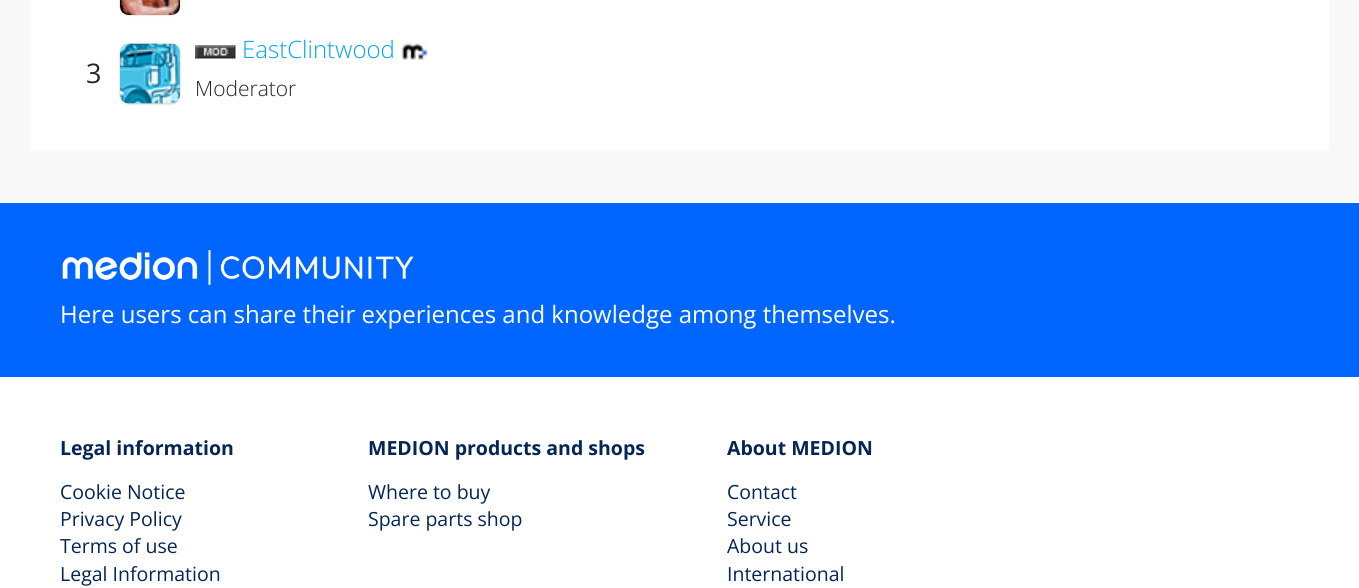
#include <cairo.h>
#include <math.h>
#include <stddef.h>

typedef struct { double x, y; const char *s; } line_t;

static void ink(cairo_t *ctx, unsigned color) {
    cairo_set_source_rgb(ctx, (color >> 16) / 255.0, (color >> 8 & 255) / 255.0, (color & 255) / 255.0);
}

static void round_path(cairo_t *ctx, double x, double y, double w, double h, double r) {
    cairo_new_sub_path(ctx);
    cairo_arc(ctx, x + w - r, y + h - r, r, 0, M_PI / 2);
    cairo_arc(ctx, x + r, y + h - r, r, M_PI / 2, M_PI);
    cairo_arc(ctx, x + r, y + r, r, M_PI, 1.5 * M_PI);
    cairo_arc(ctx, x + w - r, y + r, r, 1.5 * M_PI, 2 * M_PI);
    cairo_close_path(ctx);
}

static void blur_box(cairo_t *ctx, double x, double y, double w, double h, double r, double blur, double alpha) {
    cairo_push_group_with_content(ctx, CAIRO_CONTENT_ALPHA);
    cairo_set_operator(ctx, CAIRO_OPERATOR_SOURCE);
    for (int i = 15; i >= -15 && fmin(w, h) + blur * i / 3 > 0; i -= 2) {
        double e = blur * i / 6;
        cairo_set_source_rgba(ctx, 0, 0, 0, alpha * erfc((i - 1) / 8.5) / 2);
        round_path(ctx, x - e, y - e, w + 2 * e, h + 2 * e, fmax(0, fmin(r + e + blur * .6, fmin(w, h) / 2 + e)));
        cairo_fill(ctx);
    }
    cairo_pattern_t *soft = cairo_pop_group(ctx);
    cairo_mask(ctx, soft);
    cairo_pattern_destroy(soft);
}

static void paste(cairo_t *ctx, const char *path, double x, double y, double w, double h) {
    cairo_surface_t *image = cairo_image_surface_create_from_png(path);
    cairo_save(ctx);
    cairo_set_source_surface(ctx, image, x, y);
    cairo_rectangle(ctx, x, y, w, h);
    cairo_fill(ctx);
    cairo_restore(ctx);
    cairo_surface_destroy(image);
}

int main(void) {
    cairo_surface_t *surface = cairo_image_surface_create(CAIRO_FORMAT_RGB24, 1359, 588);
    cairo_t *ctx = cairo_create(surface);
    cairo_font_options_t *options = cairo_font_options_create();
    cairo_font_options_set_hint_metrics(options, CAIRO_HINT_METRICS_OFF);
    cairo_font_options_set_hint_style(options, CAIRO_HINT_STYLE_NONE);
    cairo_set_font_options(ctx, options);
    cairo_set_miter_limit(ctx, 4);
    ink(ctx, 0xF8F8F8);
    cairo_paint(ctx);
    ink(ctx, 0xFFFFFF);
    round_path(ctx, 30, -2, 1299, 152, 1.5);
    cairo_fill(ctx);
    ink(ctx, 0xC4C4C4);
    blur_box(ctx, 120, -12, 60, 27, 9, 1, 1);
    paste(ctx, "media/1.png", 120, 0, 60, 15);
    cairo_select_font_face(ctx, "Open Sans", CAIRO_FONT_SLANT_NORMAL, CAIRO_FONT_WEIGHT_NORMAL);
    cairo_set_font_size(ctx, 27);
    ink(ctx, 0x252525);
    cairo_move_to(ctx, 86, 83);
    cairo_show_text(ctx, "3");
    ink(ctx, 0xC4C4C4);
    blur_box(ctx, 120, 44, 60, 60, 9, 1, 1);
    paste(ctx, "media/2.png", 120, 43, 60, 61);
    paste(ctx, "media/3.png", 195, 45, 41, 14);
    cairo_select_font_face(ctx, "Open Sans Light", CAIRO_FONT_SLANT_NORMAL, CAIRO_FONT_WEIGHT_NORMAL);
    cairo_set_font_size(ctx, 24);
    ink(ctx, 0x00A6EB);
    cairo_move_to(ctx, 242, 58);
    cairo_show_text(ctx, "EastClintwood");
    paste(ctx, "media/4.png", 400, 42, 28, 18);
    cairo_set_font_size(ctx, 21);
    ink(ctx, 0x252525);
    cairo_move_to(ctx, 195, 96);
    cairo_show_text(ctx, "Moderator");
    ink(ctx, 0xFFFFFF);
    cairo_rectangle(ctx, 0, 201, 1359, 2);
    cairo_fill(ctx);
    ink(ctx, 0x0066FF);
    cairo_rectangle(ctx, 0, 203, 1359, 174);
    cairo_fill(ctx);
    paste(ctx, "media/5.png", 62, 249, 352, 36);
    cairo_select_font_face(ctx, "Open Sans", CAIRO_FONT_SLANT_NORMAL, CAIRO_FONT_WEIGHT_NORMAL);
    cairo_set_font_size(ctx, 24);
    ink(ctx, 0xFFFFFF);
    cairo_move_to(ctx, 60, 323);
    cairo_show_text(ctx, "Here users can share their experiences and knowledge among themselves.");
    cairo_rectangle(ctx, 0, 377, 1359, 211);
    cairo_fill(ctx);
    cairo_select_font_face(ctx, "Open Sans", CAIRO_FONT_SLANT_NORMAL, CAIRO_FONT_WEIGHT_BOLD);
    cairo_set_font_size(ctx, 19.5);
    ink(ctx, 0x032654);
    cairo_move_to(ctx, 60, 455);
    cairo_show_text(ctx, "Legal information");
    cairo_select_font_face(ctx, "Open Sans", CAIRO_FONT_SLANT_NORMAL, CAIRO_FONT_WEIGHT_NORMAL);
    {
        static const line_t items[] = {
            {60, 499, "Cookie Notice"},
            {60, 526, "Privacy Policy"},
            {60, 553, "Terms of use"},
            {60, 581, "Legal Information"},
        };
        for (size_t i = 0; i < sizeof items / sizeof *items; i++) {
            cairo_move_to(ctx, items[i].x, items[i].y);
            cairo_show_text(ctx, items[i].s);
        }
    }
    cairo_select_font_face(ctx, "Open Sans", CAIRO_FONT_SLANT_NORMAL, CAIRO_FONT_WEIGHT_BOLD);
    cairo_move_to(ctx, 368, 455);
    cairo_show_text(ctx, "MEDION products and shops");
    cairo_select_font_face(ctx, "Open Sans", CAIRO_FONT_SLANT_NORMAL, CAIRO_FONT_WEIGHT_NORMAL);
    cairo_move_to(ctx, 368, 499);
    cairo_show_text(ctx, "Where to buy");
    cairo_move_to(ctx, 368, 526);
    cairo_show_text(ctx, "Spare parts shop");
    cairo_select_font_face(ctx, "Open Sans", CAIRO_FONT_SLANT_NORMAL, CAIRO_FONT_WEIGHT_BOLD);
    cairo_move_to(ctx, 727, 455);
    cairo_show_text(ctx, "About MEDION");
    cairo_select_font_face(ctx, "Open Sans", CAIRO_FONT_SLANT_NORMAL, CAIRO_FONT_WEIGHT_NORMAL);
    {
        static const line_t items[] = {
            {727, 499, "Contact"},
            {727, 526, "Service"},
            {727, 553, "About us"},
            {727, 581, "International"},
        };
        for (size_t i = 0; i < sizeof items / sizeof *items; i++) {
            cairo_move_to(ctx, items[i].x, items[i].y);
            cairo_show_text(ctx, items[i].s);
        }
    }
    cairo_surface_write_to_png(surface, "image.png");
    cairo_font_options_destroy(options);
    cairo_destroy(ctx);
    cairo_surface_destroy(surface);
    return 0;
}
